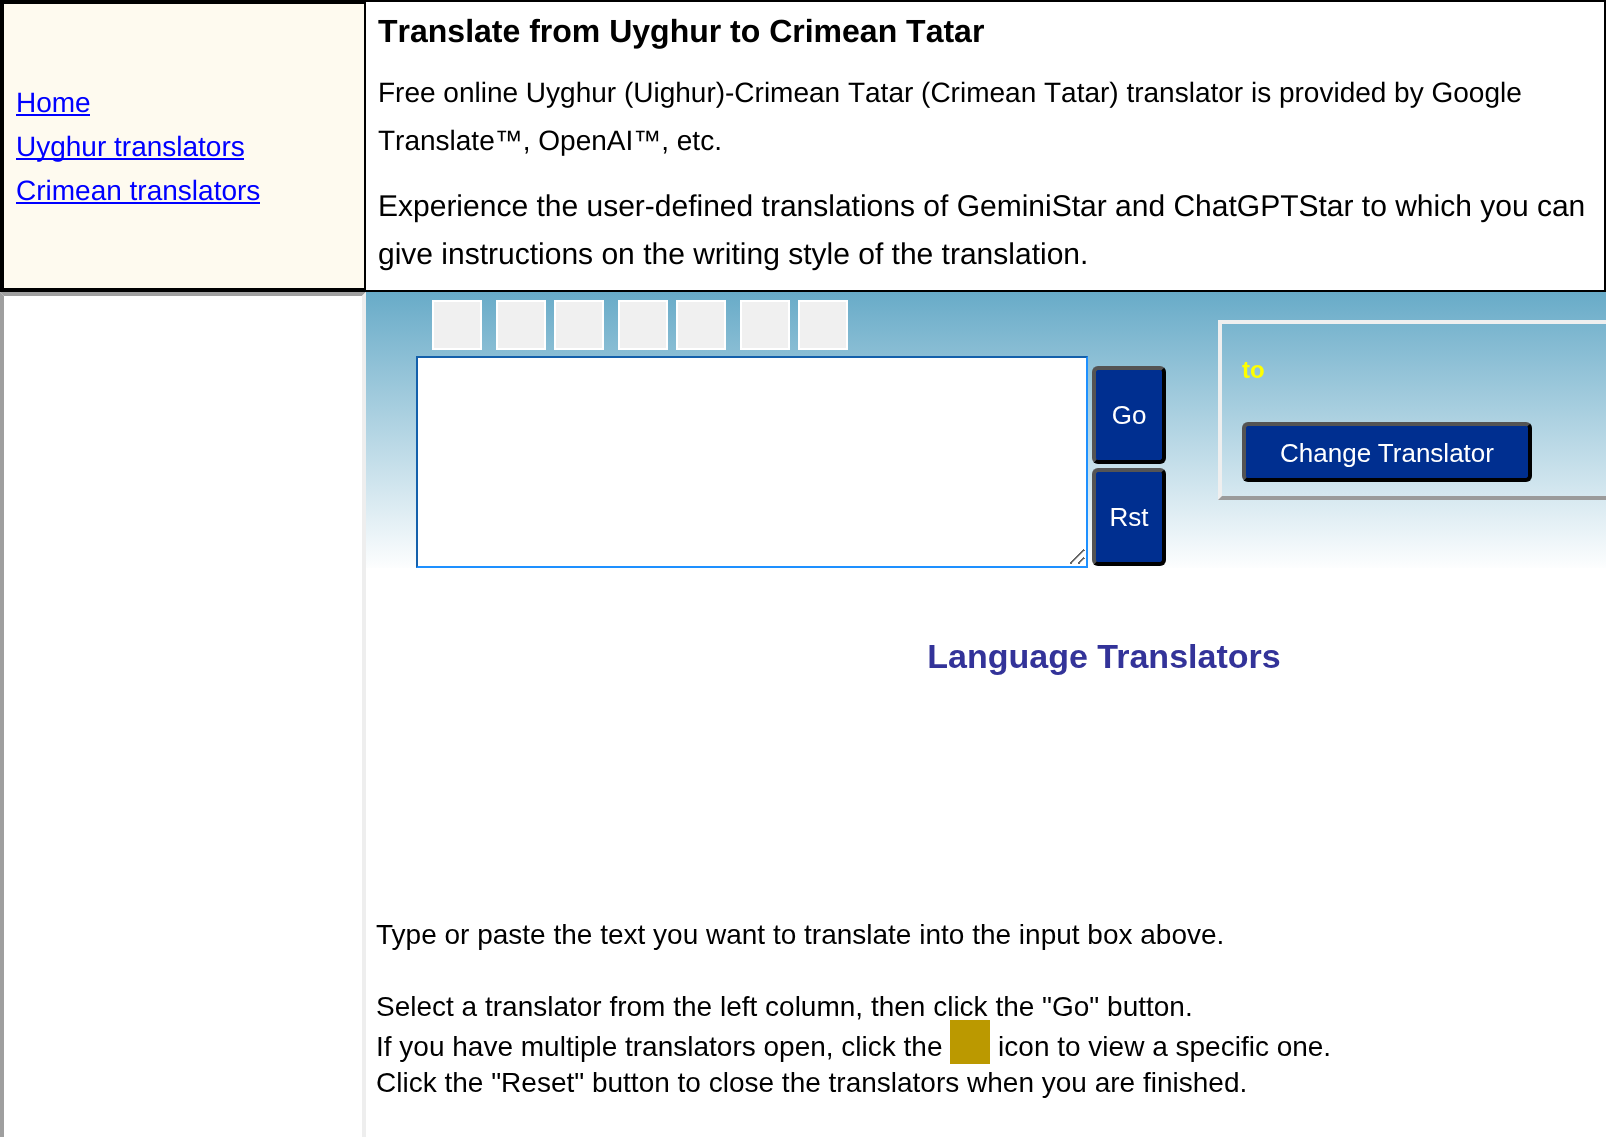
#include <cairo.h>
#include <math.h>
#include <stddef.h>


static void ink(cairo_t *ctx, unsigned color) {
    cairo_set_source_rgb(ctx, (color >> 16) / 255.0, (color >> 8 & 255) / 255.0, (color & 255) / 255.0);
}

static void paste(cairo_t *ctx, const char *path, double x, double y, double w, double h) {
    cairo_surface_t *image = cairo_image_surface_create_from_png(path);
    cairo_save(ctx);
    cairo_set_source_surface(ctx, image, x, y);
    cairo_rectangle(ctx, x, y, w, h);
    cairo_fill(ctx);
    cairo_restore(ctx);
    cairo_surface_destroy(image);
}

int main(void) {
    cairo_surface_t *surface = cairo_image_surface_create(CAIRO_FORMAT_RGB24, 1606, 1137);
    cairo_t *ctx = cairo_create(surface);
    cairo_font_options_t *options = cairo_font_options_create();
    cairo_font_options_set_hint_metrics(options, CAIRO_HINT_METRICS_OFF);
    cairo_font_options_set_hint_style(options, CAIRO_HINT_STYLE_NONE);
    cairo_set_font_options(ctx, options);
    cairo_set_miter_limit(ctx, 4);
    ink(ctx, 0xFFFFFF);
    cairo_paint(ctx);
    cairo_rectangle(ctx, 1, 1, 1604, 290);
    ink(ctx, 0x000000);
    cairo_stroke(ctx);
    ink(ctx, 0xFEFAEF);
    cairo_rectangle(ctx, 3, 3, 362, 286);
    cairo_fill_preserve(ctx);
    ink(ctx, 0x000000);
    cairo_stroke(ctx);
    cairo_select_font_face(ctx, "Liberation Sans", CAIRO_FONT_SLANT_NORMAL, CAIRO_FONT_WEIGHT_NORMAL);
    cairo_set_font_size(ctx, 28);
    ink(ctx, 0x0000FF);
    cairo_move_to(ctx, 16, 112);
    cairo_show_text(ctx, "Home");
    cairo_rectangle(ctx, 16, 114, 74, 2);
    cairo_fill(ctx);
    cairo_rectangle(ctx, 16, 158, 228, 2);
    cairo_fill(ctx);
    cairo_move_to(ctx, 16, 156);
    cairo_show_text(ctx, "Uyghur translators");
    cairo_move_to(ctx, 16, 200);
    cairo_show_text(ctx, "Crimean translators");
    cairo_rectangle(ctx, 16, 202, 244, 2);
    cairo_fill(ctx);
    cairo_select_font_face(ctx, "Liberation Sans", CAIRO_FONT_SLANT_NORMAL, CAIRO_FONT_WEIGHT_BOLD);
    cairo_set_font_size(ctx, 32);
    ink(ctx, 0x000000);
    cairo_move_to(ctx, 378, 42);
    cairo_show_text(ctx, "Translate from Uyghur to Crimean Tatar");
    cairo_select_font_face(ctx, "Liberation Sans", CAIRO_FONT_SLANT_NORMAL, CAIRO_FONT_WEIGHT_NORMAL);
    cairo_set_font_size(ctx, 28);
    cairo_move_to(ctx, 378, 102);
    cairo_show_text(ctx, "Free online Uyghur (Uighur)-Crimean Tatar (Crimean Tatar) translator is provided by Google");
    cairo_move_to(ctx, 378, 150);
    cairo_show_text(ctx, "Translate™, OpenAI™, etc.");
    cairo_set_font_size(ctx, 30);
    cairo_move_to(ctx, 378, 216);
    cairo_show_text(ctx, "Experience the user-defined translations of GeminiStar and ChatGPTStar to which you can");
    cairo_move_to(ctx, 378, 264);
    cairo_show_text(ctx, "give instructions on the writing style of the translation.");
    ink(ctx, 0x9F9F9F);
    cairo_new_path(ctx);
    cairo_move_to(ctx, 0, 292);
    cairo_line_to(ctx, 366, 292);
    cairo_line_to(ctx, 362, 296);
    cairo_line_to(ctx, 4, 296);
    cairo_close_path(ctx);
    cairo_fill(ctx);
    cairo_new_path(ctx);
    cairo_move_to(ctx, 0, 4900);
    cairo_line_to(ctx, 0, 292);
    cairo_line_to(ctx, 4, 296);
    cairo_line_to(ctx, 4, 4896);
    cairo_close_path(ctx);
    cairo_fill(ctx);
    ink(ctx, 0xEEEEEE);
    cairo_new_path(ctx);
    cairo_move_to(ctx, 366, 292);
    cairo_line_to(ctx, 366, 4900);
    cairo_line_to(ctx, 362, 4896);
    cairo_line_to(ctx, 362, 296);
    cairo_close_path(ctx);
    cairo_fill(ctx);
    paste(ctx, "media/1.png", 366, 292, 1240, 276);
    paste(ctx, "media/2.png", 376, 644, 953, 454);
    cairo_surface_write_to_png(surface, "image.png");
    cairo_font_options_destroy(options);
    cairo_destroy(ctx);
    cairo_surface_destroy(surface);
    return 0;
}
